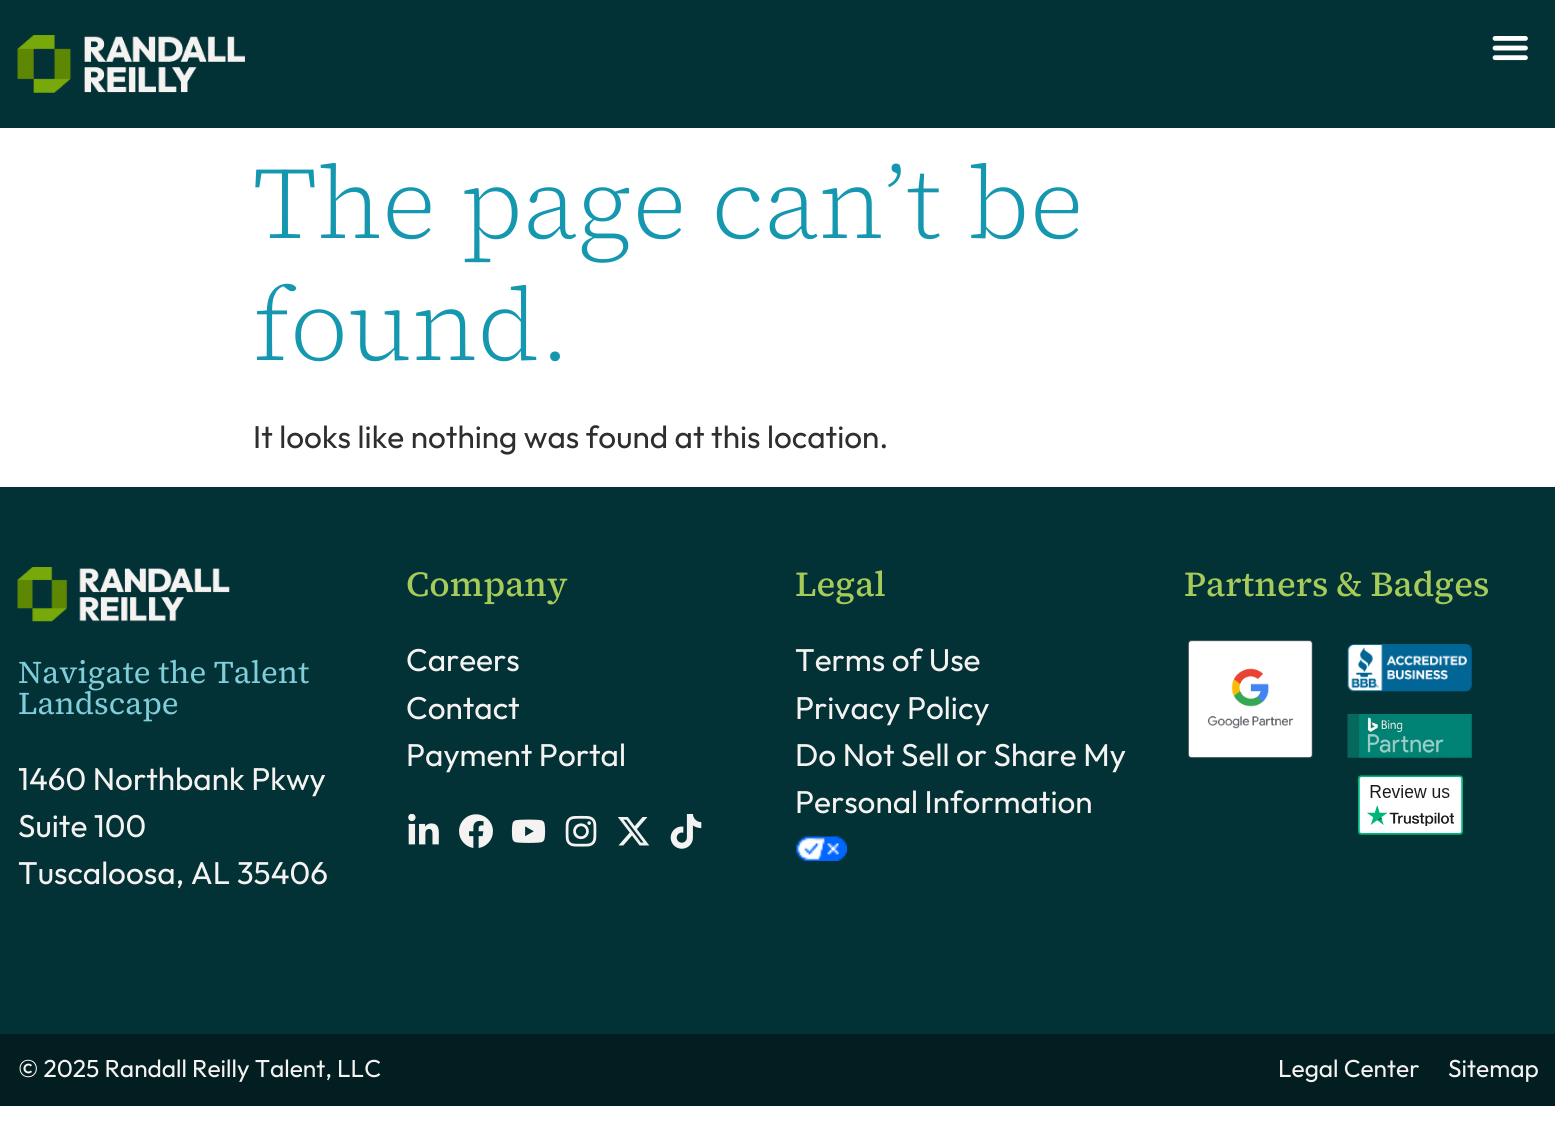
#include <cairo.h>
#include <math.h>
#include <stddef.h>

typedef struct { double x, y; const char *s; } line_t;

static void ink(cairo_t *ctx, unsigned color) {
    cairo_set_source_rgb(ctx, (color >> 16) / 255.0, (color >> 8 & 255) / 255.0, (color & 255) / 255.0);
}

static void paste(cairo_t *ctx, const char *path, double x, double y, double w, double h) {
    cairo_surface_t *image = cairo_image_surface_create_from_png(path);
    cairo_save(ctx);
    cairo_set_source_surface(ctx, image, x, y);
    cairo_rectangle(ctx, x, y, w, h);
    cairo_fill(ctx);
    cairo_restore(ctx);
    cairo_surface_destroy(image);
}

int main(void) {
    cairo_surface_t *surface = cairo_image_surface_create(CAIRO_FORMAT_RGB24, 1555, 1146);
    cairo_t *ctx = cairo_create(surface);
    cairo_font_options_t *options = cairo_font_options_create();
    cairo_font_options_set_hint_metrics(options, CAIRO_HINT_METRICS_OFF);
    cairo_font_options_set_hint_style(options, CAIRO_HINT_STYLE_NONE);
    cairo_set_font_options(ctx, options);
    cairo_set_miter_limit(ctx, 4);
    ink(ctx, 0xFFFFFF);
    cairo_paint(ctx);
    ink(ctx, 0x033236);
    cairo_rectangle(ctx, 0, 0, 1555, 128);
    cairo_fill(ctx);
    paste(ctx, "media/1.png", 17, 35, 228, 58);
    paste(ctx, "media/2.png", 1492, 36, 36, 25);
    cairo_select_font_face(ctx, "Source Serif 4 Light", CAIRO_FONT_SLANT_NORMAL, CAIRO_FONT_WEIGHT_NORMAL);
    cairo_set_font_size(ctx, 101.5);
    ink(ctx, 0x1597AF);
    cairo_move_to(ctx, 253, 238);
    cairo_show_text(ctx, "The page can’t be");
    cairo_move_to(ctx, 253, 360);
    cairo_show_text(ctx, "found.");
    cairo_select_font_face(ctx, "Outfit", CAIRO_FONT_SLANT_NORMAL, CAIRO_FONT_WEIGHT_NORMAL);
    cairo_set_font_size(ctx, 31.5);
    ink(ctx, 0x2E2E2E);
    cairo_move_to(ctx, 253, 448);
    cairo_show_text(ctx, "It looks like nothing was found at this location.");
    ink(ctx, 0x033236);
    cairo_rectangle(ctx, 0, 487, 1555, 547);
    cairo_fill(ctx);
    paste(ctx, "media/3.png", 17, 567, 213, 55);
    cairo_select_font_face(ctx, "Source Serif 4", CAIRO_FONT_SLANT_NORMAL, CAIRO_FONT_WEIGHT_NORMAL);
    ink(ctx, 0x80CEDB);
    cairo_move_to(ctx, 18, 683);
    cairo_show_text(ctx, "Navigate the Talent");
    cairo_move_to(ctx, 18, 714);
    cairo_show_text(ctx, "Landscape");
    cairo_select_font_face(ctx, "Outfit", CAIRO_FONT_SLANT_NORMAL, CAIRO_FONT_WEIGHT_NORMAL);
    ink(ctx, 0xF5F3F1);
    {
        static const line_t items[] = {
            {18, 790, "1460 Northbank Pkwy"},
            {18, 837, "Suite 100"},
            {18, 884, "Tuscaloosa, AL 35406"},
        };
        for (size_t i = 0; i < sizeof items / sizeof *items; i++) {
            cairo_move_to(ctx, items[i].x, items[i].y);
            cairo_show_text(ctx, items[i].s);
        }
    }
    cairo_select_font_face(ctx, "Source Serif 4 Medium", CAIRO_FONT_SLANT_NORMAL, CAIRO_FONT_WEIGHT_NORMAL);
    cairo_set_font_size(ctx, 35);
    ink(ctx, 0xA7CB58);
    cairo_move_to(ctx, 406, 596);
    cairo_show_text(ctx, "Company");
    cairo_select_font_face(ctx, "Outfit", CAIRO_FONT_SLANT_NORMAL, CAIRO_FONT_WEIGHT_NORMAL);
    cairo_set_font_size(ctx, 31.5);
    ink(ctx, 0xF5F3F1);
    {
        static const line_t items[] = {
            {406, 671, "Careers"},
            {406, 719, "Contact"},
            {406, 766, "Payment Portal"},
        };
        for (size_t i = 0; i < sizeof items / sizeof *items; i++) {
            cairo_move_to(ctx, items[i].x, items[i].y);
            cairo_show_text(ctx, items[i].s);
        }
    }
    paste(ctx, "media/4.png", 408, 814, 31, 31);
    paste(ctx, "media/5.png", 459, 814, 34, 34);
    paste(ctx, "media/6.png", 511, 819, 35, 24);
    paste(ctx, "media/7.png", 565, 815, 32, 32);
    paste(ctx, "media/8.png", 618, 817, 32, 29);
    paste(ctx, "media/9.png", 670, 814, 32, 35);
    cairo_select_font_face(ctx, "Source Serif 4 Medium", CAIRO_FONT_SLANT_NORMAL, CAIRO_FONT_WEIGHT_NORMAL);
    cairo_set_font_size(ctx, 35);
    ink(ctx, 0xA7CB58);
    cairo_move_to(ctx, 795, 596);
    cairo_show_text(ctx, "Legal");
    cairo_select_font_face(ctx, "Outfit", CAIRO_FONT_SLANT_NORMAL, CAIRO_FONT_WEIGHT_NORMAL);
    cairo_set_font_size(ctx, 31.5);
    ink(ctx, 0xF5F3F1);
    {
        static const line_t items[] = {
            {795, 671, "Terms of Use"},
            {795, 719, "Privacy Policy"},
            {795, 766, "Do Not Sell or Share My"},
            {795, 813, "Personal Information"},
        };
        for (size_t i = 0; i < sizeof items / sizeof *items; i++) {
            cairo_move_to(ctx, items[i].x, items[i].y);
            cairo_show_text(ctx, items[i].s);
        }
    }
    paste(ctx, "media/10.png", 796, 836, 51, 25);
    cairo_select_font_face(ctx, "Source Serif 4 Medium", CAIRO_FONT_SLANT_NORMAL, CAIRO_FONT_WEIGHT_NORMAL);
    cairo_set_font_size(ctx, 35);
    ink(ctx, 0xA7CB58);
    cairo_move_to(ctx, 1184, 596);
    cairo_show_text(ctx, "Partners & Badges");
    paste(ctx, "media/11.png", 1188, 640, 125, 118);
    paste(ctx, "media/12.png", 1347, 644, 125, 48);
    paste(ctx, "media/13.png", 1347, 714, 125, 44);
    paste(ctx, "media/14.png", 1358, 775, 105, 60);
    ink(ctx, 0x021E20);
    cairo_rectangle(ctx, 0, 1034, 1555, 72);
    cairo_fill(ctx);
    cairo_select_font_face(ctx, "Outfit", CAIRO_FONT_SLANT_NORMAL, CAIRO_FONT_WEIGHT_NORMAL);
    cairo_set_font_size(ctx, 24.5);
    ink(ctx, 0xF5F3F1);
    {
        static const line_t items[] = {
            {18, 1077, "© 2025 Randall Reilly Talent, LLC"},
            {1278, 1077, "Legal Center"},
            {1448, 1077, "Sitemap"},
        };
        for (size_t i = 0; i < sizeof items / sizeof *items; i++) {
            cairo_move_to(ctx, items[i].x, items[i].y);
            cairo_show_text(ctx, items[i].s);
        }
    }
    cairo_surface_write_to_png(surface, "image.png");
    cairo_font_options_destroy(options);
    cairo_destroy(ctx);
    cairo_surface_destroy(surface);
    return 0;
}
